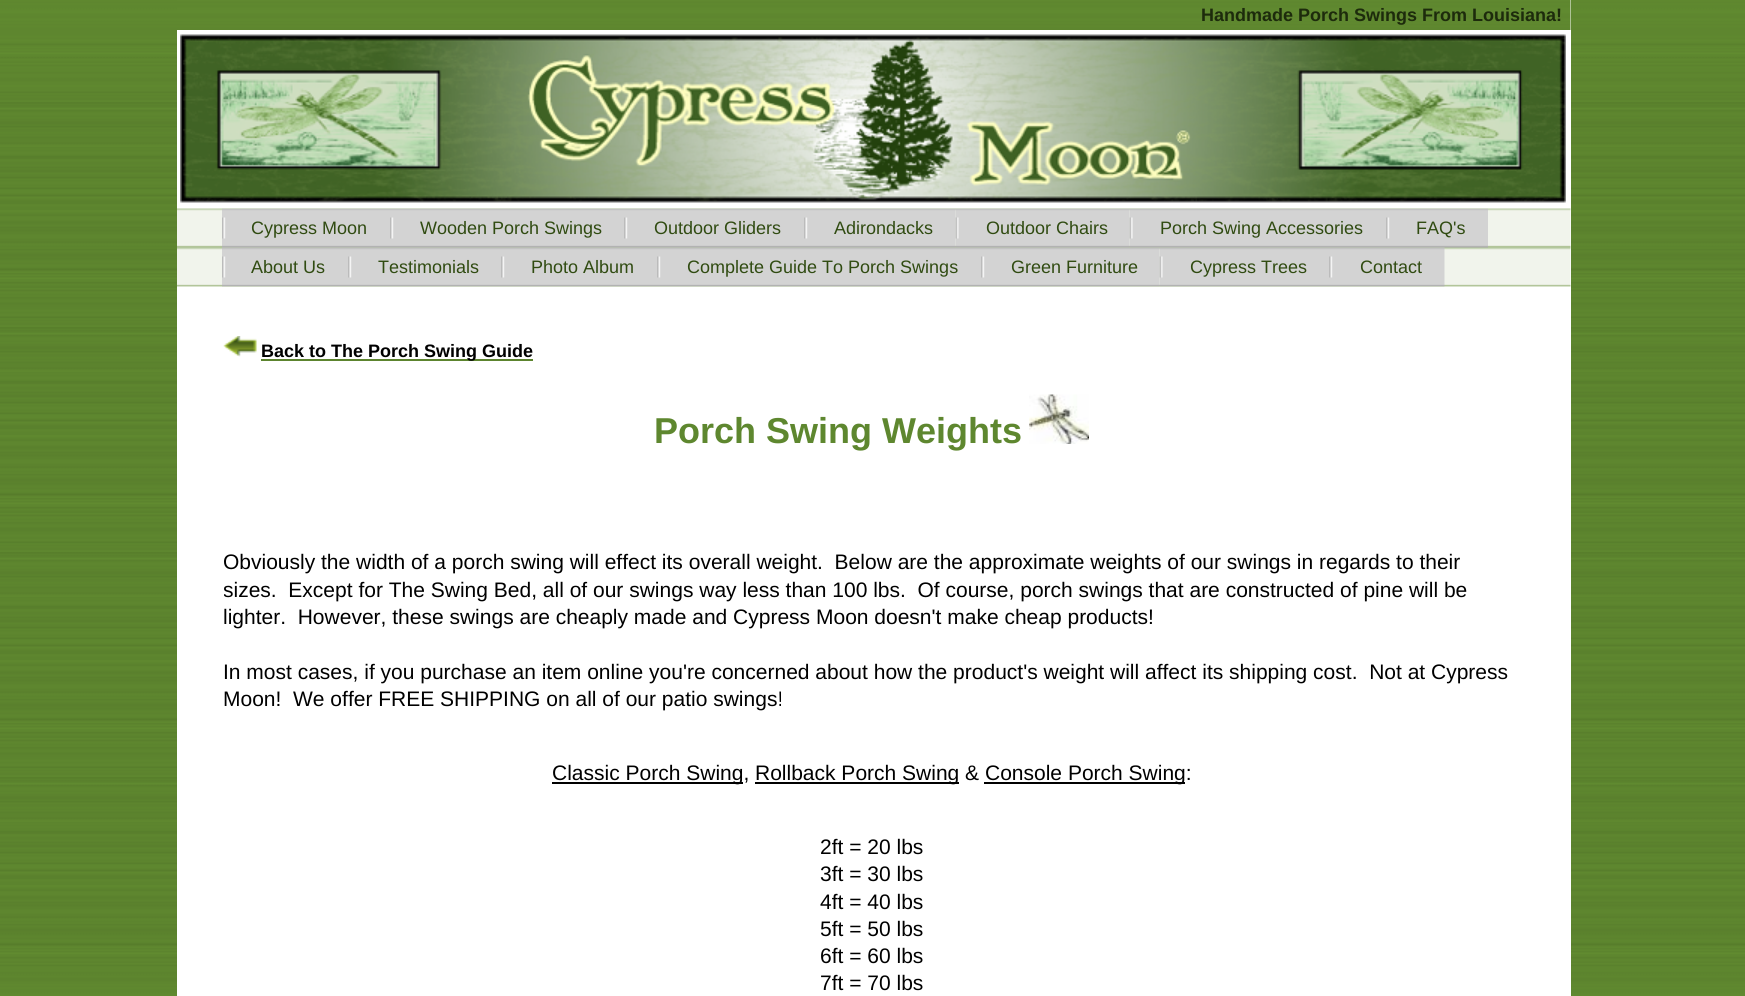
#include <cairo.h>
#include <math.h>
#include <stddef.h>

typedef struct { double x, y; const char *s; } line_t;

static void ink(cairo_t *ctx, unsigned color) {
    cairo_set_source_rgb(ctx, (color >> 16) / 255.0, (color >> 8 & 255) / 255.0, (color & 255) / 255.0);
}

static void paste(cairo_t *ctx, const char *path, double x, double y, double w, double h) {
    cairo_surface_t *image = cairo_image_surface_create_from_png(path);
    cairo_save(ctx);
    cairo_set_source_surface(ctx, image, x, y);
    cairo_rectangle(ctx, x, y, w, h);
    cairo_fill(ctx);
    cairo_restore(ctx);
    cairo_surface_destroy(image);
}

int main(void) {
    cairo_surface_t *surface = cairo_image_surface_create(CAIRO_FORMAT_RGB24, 1745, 996);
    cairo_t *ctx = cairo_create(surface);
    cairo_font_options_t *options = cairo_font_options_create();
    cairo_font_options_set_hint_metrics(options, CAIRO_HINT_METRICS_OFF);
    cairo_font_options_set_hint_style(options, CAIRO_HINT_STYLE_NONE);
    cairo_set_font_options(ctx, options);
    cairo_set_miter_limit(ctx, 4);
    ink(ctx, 0xFFFFFF);
    cairo_paint(ctx);
    paste(ctx, "media/1.png", 0, 0, 1745, 996);
    ink(ctx, 0xFFFFFF);
    cairo_rectangle(ctx, 177, 0, 1394, 996);
    cairo_fill(ctx);
    paste(ctx, "media/2.png", 177, 0, 1394, 30);
    cairo_select_font_face(ctx, "Liberation Sans", CAIRO_FONT_SLANT_NORMAL, CAIRO_FONT_WEIGHT_BOLD);
    cairo_set_font_size(ctx, 18);
    ink(ctx, 0x1D2B0C);
    cairo_move_to(ctx, 1201, 21);
    cairo_show_text(ctx, "Handmade Porch Swings From Louisiana!");
    paste(ctx, "media/3.png", 180, 34, 1386, 169);
    paste(ctx, "media/4.png", 177, 208, 1394, 79);
    paste(ctx, "media/5.png", 222, 208, 168, 40);
    cairo_select_font_face(ctx, "Liberation Sans", CAIRO_FONT_SLANT_NORMAL, CAIRO_FONT_WEIGHT_NORMAL);
    ink(ctx, 0x304B11);
    cairo_move_to(ctx, 251, 234);
    cairo_show_text(ctx, "Cypress Moon");
    paste(ctx, "media/6.png", 390, 208, 234, 40);
    cairo_move_to(ctx, 420, 234);
    cairo_show_text(ctx, "Wooden Porch Swings");
    paste(ctx, "media/7.png", 624, 208, 180, 40);
    cairo_move_to(ctx, 654, 234);
    cairo_show_text(ctx, "Outdoor Gliders");
    paste(ctx, "media/8.png", 804, 208, 152, 40);
    cairo_move_to(ctx, 834, 234);
    cairo_show_text(ctx, "Adirondacks");
    paste(ctx, "media/9.png", 955, 208, 175, 40);
    cairo_move_to(ctx, 986, 234);
    cairo_show_text(ctx, "Outdoor Chairs");
    paste(ctx, "media/10.png", 1129, 208, 257, 40);
    cairo_move_to(ctx, 1160, 234);
    cairo_show_text(ctx, "Porch Swing Accessories");
    paste(ctx, "media/11.png", 1386, 208, 102, 40);
    cairo_move_to(ctx, 1416, 234);
    cairo_show_text(ctx, "FAQ's");
    paste(ctx, "media/12.png", 222, 247, 126, 40);
    cairo_move_to(ctx, 251, 273);
    cairo_show_text(ctx, "About Us");
    paste(ctx, "media/13.png", 348, 247, 153, 40);
    cairo_move_to(ctx, 378, 273);
    cairo_show_text(ctx, "Testimonials");
    paste(ctx, "media/14.png", 501, 247, 156, 40);
    cairo_move_to(ctx, 531, 273);
    cairo_show_text(ctx, "Photo Album");
    paste(ctx, "media/15.png", 657, 247, 324, 40);
    cairo_move_to(ctx, 687, 273);
    cairo_show_text(ctx, "Complete Guide To Porch Swings");
    paste(ctx, "media/16.png", 981, 247, 179, 40);
    cairo_move_to(ctx, 1011, 273);
    cairo_show_text(ctx, "Green Furniture");
    paste(ctx, "media/17.png", 1159, 247, 170, 40);
    cairo_move_to(ctx, 1190, 273);
    cairo_show_text(ctx, "Cypress Trees");
    paste(ctx, "media/18.png", 1329, 247, 116, 40);
    cairo_move_to(ctx, 1360, 273);
    cairo_show_text(ctx, "Contact");
    paste(ctx, "media/19.png", 223, 336, 34, 21);
    ink(ctx, 0x5C842E);
    cairo_rectangle(ctx, 261, 359, 272, 2);
    cairo_fill(ctx);
    cairo_select_font_face(ctx, "Liberation Sans", CAIRO_FONT_SLANT_NORMAL, CAIRO_FONT_WEIGHT_BOLD);
    ink(ctx, 0x000000);
    cairo_move_to(ctx, 261, 357);
    cairo_show_text(ctx, "Back to The Porch Swing Guide");
    cairo_set_font_size(ctx, 36);
    ink(ctx, 0x5E872F);
    cairo_move_to(ctx, 654, 443);
    cairo_show_text(ctx, "Porch Swing Weights");
    paste(ctx, "media/20.png", 1029, 394, 60, 50);
    cairo_save(ctx);
    cairo_rectangle(ctx, 224, 306, 1297, 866);
    cairo_clip(ctx);
    cairo_select_font_face(ctx, "Liberation Sans", CAIRO_FONT_SLANT_NORMAL, CAIRO_FONT_WEIGHT_NORMAL);
    cairo_set_font_size(ctx, 21);
    ink(ctx, 0x000000);
    cairo_move_to(ctx, 223, 569);
    cairo_show_text(ctx, "Obviously the width of a porch swing will effect its overall weight.  Below are the approximate weights of our swings in regards to their");
    cairo_move_to(ctx, 223, 597);
    cairo_show_text(ctx, "sizes.  Except for The Swing Bed, all of our swings way less than 100 lbs.  Of course, porch swings that are constructed of pine will be");
    cairo_restore(ctx);
    cairo_select_font_face(ctx, "Liberation Sans", CAIRO_FONT_SLANT_NORMAL, CAIRO_FONT_WEIGHT_NORMAL);
    cairo_set_font_size(ctx, 21);
    ink(ctx, 0x000000);
    {
        static const line_t items[] = {
            {223, 624, "lighter.  However, these swings are cheaply made and Cypress Moon doesn't make cheap products!"},
            {223, 679, "In most cases, if you purchase an item online you're concerned about how the product's weight will affect its shipping cost.  Not at Cypress"},
            {223, 706, "Moon!  We offer FREE SHIPPING on all of our patio swings!"},
        };
        for (size_t i = 0; i < sizeof items / sizeof *items; i++) {
            cairo_move_to(ctx, items[i].x, items[i].y);
            cairo_show_text(ctx, items[i].s);
        }
    }
    cairo_rectangle(ctx, 552, 782, 191, 2);
    cairo_fill(ctx);
    cairo_move_to(ctx, 552, 780);
    cairo_show_text(ctx, "Classic Porch Swing,");
    cairo_rectangle(ctx, 755, 782, 204, 2);
    cairo_fill(ctx);
    cairo_move_to(ctx, 755, 780);
    cairo_show_text(ctx, "Rollback Porch Swing &");
    cairo_rectangle(ctx, 984, 782, 201, 2);
    cairo_fill(ctx);
    {
        static const line_t items[] = {
            {985, 780, "Console Porch Swing:"},
            {820, 854, "2ft = 20 lbs"},
            {820, 881, "3ft = 30 lbs"},
            {820, 909, "4ft = 40 lbs"},
            {820, 936, "5ft = 50 lbs"},
            {820, 963, "6ft = 60 lbs"},
            {820, 990, "7ft = 70 lbs"},
        };
        for (size_t i = 0; i < sizeof items / sizeof *items; i++) {
            cairo_move_to(ctx, items[i].x, items[i].y);
            cairo_show_text(ctx, items[i].s);
        }
    }
    cairo_surface_write_to_png(surface, "image.png");
    cairo_font_options_destroy(options);
    cairo_destroy(ctx);
    cairo_surface_destroy(surface);
    return 0;
}
